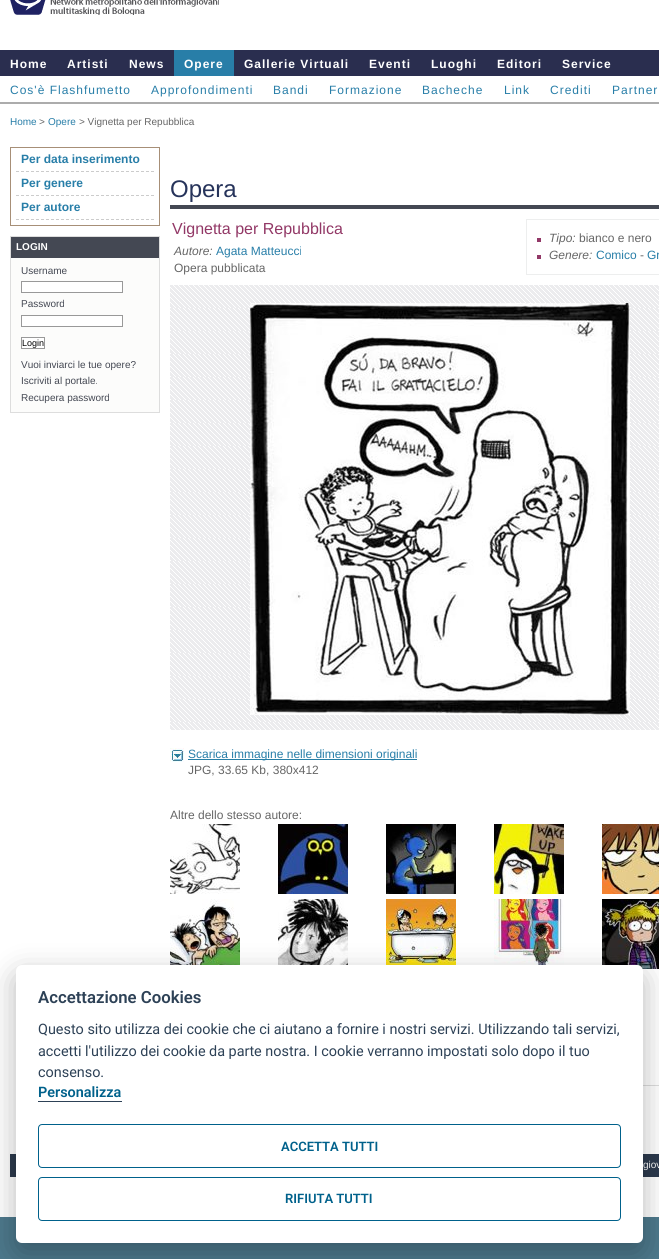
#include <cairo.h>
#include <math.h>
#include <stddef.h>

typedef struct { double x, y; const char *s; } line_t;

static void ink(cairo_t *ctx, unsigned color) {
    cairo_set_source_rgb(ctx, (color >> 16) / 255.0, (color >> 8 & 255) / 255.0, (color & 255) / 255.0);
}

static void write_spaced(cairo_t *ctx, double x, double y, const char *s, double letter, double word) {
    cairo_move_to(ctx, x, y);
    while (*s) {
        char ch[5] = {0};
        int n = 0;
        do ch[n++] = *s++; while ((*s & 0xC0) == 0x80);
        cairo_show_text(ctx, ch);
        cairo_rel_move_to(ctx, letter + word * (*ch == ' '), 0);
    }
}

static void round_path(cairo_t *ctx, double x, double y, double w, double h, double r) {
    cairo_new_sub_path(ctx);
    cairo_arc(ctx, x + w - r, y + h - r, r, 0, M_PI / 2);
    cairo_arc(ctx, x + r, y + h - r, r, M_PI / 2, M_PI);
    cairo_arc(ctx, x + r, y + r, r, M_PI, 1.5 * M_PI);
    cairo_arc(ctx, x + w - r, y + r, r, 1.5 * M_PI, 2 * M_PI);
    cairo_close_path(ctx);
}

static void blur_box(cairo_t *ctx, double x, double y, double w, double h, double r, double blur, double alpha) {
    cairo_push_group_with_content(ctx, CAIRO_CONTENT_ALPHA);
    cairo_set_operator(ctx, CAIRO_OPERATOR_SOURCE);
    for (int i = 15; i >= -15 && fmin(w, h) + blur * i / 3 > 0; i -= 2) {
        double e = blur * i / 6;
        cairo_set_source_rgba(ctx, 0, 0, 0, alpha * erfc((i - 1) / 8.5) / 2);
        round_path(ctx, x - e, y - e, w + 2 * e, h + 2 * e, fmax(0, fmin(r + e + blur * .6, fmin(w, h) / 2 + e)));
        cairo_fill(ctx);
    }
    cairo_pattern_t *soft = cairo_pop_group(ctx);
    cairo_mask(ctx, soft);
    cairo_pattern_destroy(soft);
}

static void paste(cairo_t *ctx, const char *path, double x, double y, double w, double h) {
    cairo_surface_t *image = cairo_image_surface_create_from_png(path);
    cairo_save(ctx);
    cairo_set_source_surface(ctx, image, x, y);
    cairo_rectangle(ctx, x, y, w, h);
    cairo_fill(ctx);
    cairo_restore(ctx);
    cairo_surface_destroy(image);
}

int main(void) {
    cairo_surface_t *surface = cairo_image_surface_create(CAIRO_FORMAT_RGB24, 659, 1259);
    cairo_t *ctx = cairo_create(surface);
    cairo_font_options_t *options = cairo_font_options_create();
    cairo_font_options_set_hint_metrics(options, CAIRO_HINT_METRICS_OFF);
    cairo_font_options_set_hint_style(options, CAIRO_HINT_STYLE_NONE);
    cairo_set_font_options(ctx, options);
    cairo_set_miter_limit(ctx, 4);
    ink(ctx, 0x4D798C);
    cairo_paint(ctx);
    ink(ctx, 0xFFFFFF);
    cairo_rectangle(ctx, 0, 0, 659, 102);
    cairo_fill(ctx);
    paste(ctx, "media/1.png", 10, 0, 209, 15);
    ink(ctx, 0x2A2E4F);
    cairo_rectangle(ctx, 0, 50, 659, 26);
    cairo_fill(ctx);
    cairo_select_font_face(ctx, "Liberation Sans", CAIRO_FONT_SLANT_NORMAL, CAIRO_FONT_WEIGHT_BOLD);
    cairo_set_font_size(ctx, 12);
    ink(ctx, 0xFFFFFF);
    {
        static const line_t items[] = {
            {10, 68, "Home"},
            {67, 68, "Artisti"},
            {129, 68, "News"},
        };
        for (size_t i = 0; i < sizeof items / sizeof *items; i++) {
            write_spaced(ctx, items[i].x, items[i].y, items[i].s, 1, 0);
        }
    }
    ink(ctx, 0x287EA8);
    cairo_rectangle(ctx, 174, 50, 60, 26);
    cairo_fill(ctx);
    ink(ctx, 0xFFFFFF);
    {
        static const line_t items[] = {
            {184, 68, "Opere"},
            {244, 68, "Gallerie Virtuali"},
            {369, 68, "Eventi"},
            {431, 68, "Luoghi"},
            {497, 68, "Editori"},
            {562, 68, "Service"},
        };
        for (size_t i = 0; i < sizeof items / sizeof *items; i++) {
            write_spaced(ctx, items[i].x, items[i].y, items[i].s, 1, 0);
        }
    }
    ink(ctx, 0xACACAC);
    cairo_rectangle(ctx, 0, 102, 659, 2);
    cairo_fill(ctx);
    cairo_select_font_face(ctx, "Liberation Sans", CAIRO_FONT_SLANT_NORMAL, CAIRO_FONT_WEIGHT_NORMAL);
    ink(ctx, 0x287EA8);
    {
        static const line_t items[] = {
            {10, 94, "Cos'è Flashfumetto"},
            {151, 94, "Approfondimenti"},
            {273, 94, "Bandi"},
            {329, 94, "Formazione"},
            {422, 94, "Bacheche"},
            {504, 94, "Link"},
            {550, 94, "Crediti"},
            {612, 94, "Partner"},
        };
        for (size_t i = 0; i < sizeof items / sizeof *items; i++) {
            write_spaced(ctx, items[i].x, items[i].y, items[i].s, 1, 0);
        }
    }
    ink(ctx, 0xFFFFFF);
    cairo_rectangle(ctx, 0, 104, 659, 1113);
    cairo_fill(ctx);
    cairo_set_font_size(ctx, 10);
    ink(ctx, 0x287EA8);
    cairo_move_to(ctx, 10, 125);
    cairo_show_text(ctx, "Home");
    ink(ctx, 0x666666);
    cairo_move_to(ctx, 39, 125);
    cairo_show_text(ctx, ">");
    ink(ctx, 0x287EA8);
    cairo_move_to(ctx, 48, 125);
    cairo_show_text(ctx, "Opere");
    ink(ctx, 0x666666);
    cairo_move_to(ctx, 79, 125);
    cairo_show_text(ctx, "> Vignetta per Repubblica");
    cairo_rectangle(ctx, 10.5, 147.5, 149, 78);
    ink(ctx, 0xA78F77);
    cairo_set_line_width(ctx, 1);
    cairo_stroke(ctx);
    cairo_new_path(ctx);
    cairo_move_to(ctx, 16, 171.5);
    cairo_line_to(ctx, 154, 171.5);
    ink(ctx, 0xCCCCCC);
    cairo_set_dash(ctx, (double[]){3, 2}, 2, 0);
    cairo_stroke(ctx);
    cairo_select_font_face(ctx, "Liberation Sans", CAIRO_FONT_SLANT_NORMAL, CAIRO_FONT_WEIGHT_BOLD);
    cairo_set_font_size(ctx, 12);
    ink(ctx, 0x287EA8);
    cairo_move_to(ctx, 21, 163);
    cairo_show_text(ctx, "Per data inserimento");
    cairo_new_path(ctx);
    cairo_move_to(ctx, 16, 195.5);
    cairo_line_to(ctx, 154, 195.5);
    ink(ctx, 0xCCCCCC);
    cairo_stroke(ctx);
    ink(ctx, 0x287EA8);
    cairo_move_to(ctx, 21, 187);
    cairo_show_text(ctx, "Per genere");
    cairo_new_path(ctx);
    cairo_move_to(ctx, 16, 219.5);
    cairo_line_to(ctx, 154, 219.5);
    ink(ctx, 0xCCCCCC);
    cairo_stroke(ctx);
    ink(ctx, 0x287EA8);
    cairo_move_to(ctx, 21, 211);
    cairo_show_text(ctx, "Per autore");
    ink(ctx, 0xFCFCFB);
    cairo_rectangle(ctx, 11, 258, 148, 154);
    cairo_fill(ctx);
    cairo_rectangle(ctx, 10.5, 236.5, 149, 176);
    ink(ctx, 0xDDDDDD);
    cairo_set_dash(ctx, NULL, 0, 0);
    cairo_stroke(ctx);
    ink(ctx, 0x444853);
    cairo_rectangle(ctx, 11, 237, 148, 21);
    cairo_fill(ctx);
    cairo_set_font_size(ctx, 10);
    ink(ctx, 0xFFFFFF);
    cairo_move_to(ctx, 16, 250);
    cairo_show_text(ctx, "LOGIN");
    cairo_select_font_face(ctx, "Liberation Sans", CAIRO_FONT_SLANT_NORMAL, CAIRO_FONT_WEIGHT_NORMAL);
    ink(ctx, 0x444853);
    cairo_move_to(ctx, 21, 274);
    cairo_show_text(ctx, "Username");
    ink(ctx, 0xFFFFFF);
    cairo_rectangle(ctx, 21.5, 281.5, 101, 11);
    cairo_fill_preserve(ctx);
    ink(ctx, 0x999999);
    cairo_stroke(ctx);
    ink(ctx, 0x444853);
    cairo_move_to(ctx, 21, 307);
    cairo_show_text(ctx, "Password");
    ink(ctx, 0xFFFFFF);
    cairo_rectangle(ctx, 21.5, 315.5, 101, 11);
    cairo_fill_preserve(ctx);
    ink(ctx, 0x999999);
    cairo_stroke(ctx);
    ink(ctx, 0xFFFFFF);
    cairo_rectangle(ctx, 21.5, 337.5, 23, 11);
    cairo_fill_preserve(ctx);
    ink(ctx, 0x999999);
    cairo_stroke(ctx);
    cairo_set_font_size(ctx, 9);
    ink(ctx, 0x000000);
    cairo_move_to(ctx, 22, 346);
    cairo_show_text(ctx, "Login");
    cairo_set_font_size(ctx, 10);
    ink(ctx, 0x444853);
    {
        static const line_t items[] = {
            {21, 368, "Vuoi inviarci le tue opere?"},
            {21, 384, "Iscriviti al portale."},
            {21, 401, "Recupera password"},
        };
        for (size_t i = 0; i < sizeof items / sizeof *items; i++) {
            cairo_move_to(ctx, items[i].x, items[i].y);
            cairo_show_text(ctx, items[i].s);
        }
    }
    cairo_rectangle(ctx, 170, 205, 489, 4);
    cairo_fill(ctx);
    cairo_set_font_size(ctx, 24);
    ink(ctx, 0x26335A);
    cairo_move_to(ctx, 170, 197);
    cairo_show_text(ctx, "Opera");
    cairo_set_font_size(ctx, 16);
    ink(ctx, 0x923866);
    cairo_move_to(ctx, 172, 234);
    cairo_show_text(ctx, "Vignetta per Repubblica");
    cairo_select_font_face(ctx, "Liberation Sans", CAIRO_FONT_SLANT_ITALIC, CAIRO_FONT_WEIGHT_NORMAL);
    cairo_set_font_size(ctx, 12);
    ink(ctx, 0x666666);
    cairo_move_to(ctx, 174, 255);
    cairo_show_text(ctx, "Autore:");
    cairo_select_font_face(ctx, "Liberation Sans", CAIRO_FONT_SLANT_NORMAL, CAIRO_FONT_WEIGHT_NORMAL);
    ink(ctx, 0x287EA8);
    cairo_move_to(ctx, 216, 255);
    cairo_show_text(ctx, "Agata Matteucci");
    ink(ctx, 0x666666);
    cairo_move_to(ctx, 174, 272);
    cairo_show_text(ctx, "Opera pubblicata");
    cairo_rectangle(ctx, 526.5, 219.5, 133, 55);
    ink(ctx, 0xEDEEEE);
    cairo_stroke(ctx);
    cairo_select_font_face(ctx, "Liberation Sans", CAIRO_FONT_SLANT_ITALIC, CAIRO_FONT_WEIGHT_NORMAL);
    ink(ctx, 0x666666);
    cairo_move_to(ctx, 549, 242);
    cairo_show_text(ctx, "Tipo:");
    ink(ctx, 0x923867);
    cairo_rectangle(ctx, 537, 238, 4, 4);
    cairo_fill(ctx);
    cairo_select_font_face(ctx, "Liberation Sans", CAIRO_FONT_SLANT_NORMAL, CAIRO_FONT_WEIGHT_NORMAL);
    ink(ctx, 0x666666);
    cairo_move_to(ctx, 579, 242);
    cairo_show_text(ctx, "bianco e nero");
    cairo_select_font_face(ctx, "Liberation Sans", CAIRO_FONT_SLANT_ITALIC, CAIRO_FONT_WEIGHT_NORMAL);
    cairo_move_to(ctx, 549, 259);
    cairo_show_text(ctx, "Genere:");
    ink(ctx, 0x923867);
    cairo_rectangle(ctx, 537, 255, 4, 4);
    cairo_fill(ctx);
    cairo_select_font_face(ctx, "Liberation Sans", CAIRO_FONT_SLANT_NORMAL, CAIRO_FONT_WEIGHT_NORMAL);
    ink(ctx, 0x287EA8);
    cairo_move_to(ctx, 596, 259);
    cairo_show_text(ctx, "Comico");
    ink(ctx, 0x666666);
    cairo_move_to(ctx, 640, 259);
    cairo_show_text(ctx, "-");
    ink(ctx, 0x287EA8);
    cairo_move_to(ctx, 647, 259);
    cairo_show_text(ctx, "Gr");
    paste(ctx, "media/2.png", 170, 285, 489, 445);
    paste(ctx, "media/3.png", 250, 303, 380, 412);
    paste(ctx, "media/4.png", 170, 748, 14, 14);
    ink(ctx, 0x267EA5);
    cairo_rectangle(ctx, 188, 759, 229, 1);
    cairo_fill(ctx);
    ink(ctx, 0x287EA8);
    cairo_move_to(ctx, 188, 758);
    cairo_show_text(ctx, "Scarica immagine nelle dimensioni originali");
    ink(ctx, 0x666666);
    cairo_move_to(ctx, 188, 774);
    cairo_show_text(ctx, "JPG, 33.65 Kb, 380x412");
    cairo_move_to(ctx, 170, 819);
    cairo_show_text(ctx, "Altre dello stesso autore:");
    paste(ctx, "media/5.png", 170, 824, 70, 70);
    paste(ctx, "media/6.png", 278, 824, 70, 70);
    paste(ctx, "media/7.png", 386, 824, 70, 70);
    paste(ctx, "media/8.png", 494, 824, 70, 70);
    paste(ctx, "media/9.png", 602, 824, 57, 70);
    paste(ctx, "media/10.png", 170, 899, 70, 66);
    paste(ctx, "media/11.png", 278, 899, 70, 66);
    paste(ctx, "media/12.png", 386, 899, 70, 66);
    paste(ctx, "media/13.png", 494, 899, 70, 66);
    paste(ctx, "media/14.png", 602, 899, 57, 70);
    ink(ctx, 0xDDDDDD);
    cairo_rectangle(ctx, 643, 1085, 16, 1);
    cairo_fill(ctx);
    ink(ctx, 0x2C3A4D);
    cairo_rectangle(ctx, 10, 1154, 649, 23);
    cairo_fill(ctx);
    cairo_set_font_size(ctx, 10);
    ink(ctx, 0xFFFFFF);
    cairo_move_to(ctx, 643, 1168);
    cairo_show_text(ctx, "giov");
    ink(ctx, 0x020203);
    blur_box(ctx, 16, 975, 627, 278, 6, 15, 0.28);
    ink(ctx, 0xFFFFFF);
    round_path(ctx, 16, 965, 627, 278, 6);
    cairo_fill(ctx);
    cairo_select_font_face(ctx, "Roboto SemiBold", CAIRO_FONT_SLANT_NORMAL, CAIRO_FONT_WEIGHT_NORMAL);
    cairo_set_font_size(ctx, 16.75);
    ink(ctx, 0x2D4156);
    cairo_move_to(ctx, 38, 1003);
    cairo_show_text(ctx, "Accettazione Cookies");
    cairo_select_font_face(ctx, "Roboto", CAIRO_FONT_SLANT_NORMAL, CAIRO_FONT_WEIGHT_NORMAL);
    cairo_set_font_size(ctx, 14.4);
    {
        static const line_t items[] = {
            {38, 1034, "Questo sito utilizza dei cookie che ci aiutano a fornire i nostri servizi. Utilizzando tali servizi,"},
            {38, 1056, "accetti l'utilizzo dei cookie da parte nostra. I cookie verranno impostati solo dopo il tuo"},
            {38, 1077, "consenso."},
        };
        for (size_t i = 0; i < sizeof items / sizeof *items; i++) {
            cairo_move_to(ctx, items[i].x, items[i].y);
            cairo_show_text(ctx, items[i].s);
        }
    }
    cairo_rectangle(ctx, 38, 1101, 84, 1);
    cairo_fill(ctx);
    cairo_select_font_face(ctx, "Roboto SemiBold", CAIRO_FONT_SLANT_NORMAL, CAIRO_FONT_WEIGHT_NORMAL);
    ink(ctx, 0x00618B);
    cairo_move_to(ctx, 38, 1097);
    cairo_show_text(ctx, "Personalizza");
    round_path(ctx, 38.5, 1124.5, 582, 43, 3.5);
    cairo_stroke(ctx);
    cairo_set_font_size(ctx, 13);
    cairo_move_to(ctx, 281, 1151);
    cairo_show_text(ctx, "ACCETTA TUTTI");
    round_path(ctx, 38.5, 1177.5, 582, 43, 3.5);
    cairo_stroke(ctx);
    cairo_move_to(ctx, 285, 1203);
    cairo_show_text(ctx, "RIFIUTA TUTTI");
    cairo_surface_write_to_png(surface, "image.png");
    cairo_font_options_destroy(options);
    cairo_destroy(ctx);
    cairo_surface_destroy(surface);
    return 0;
}
